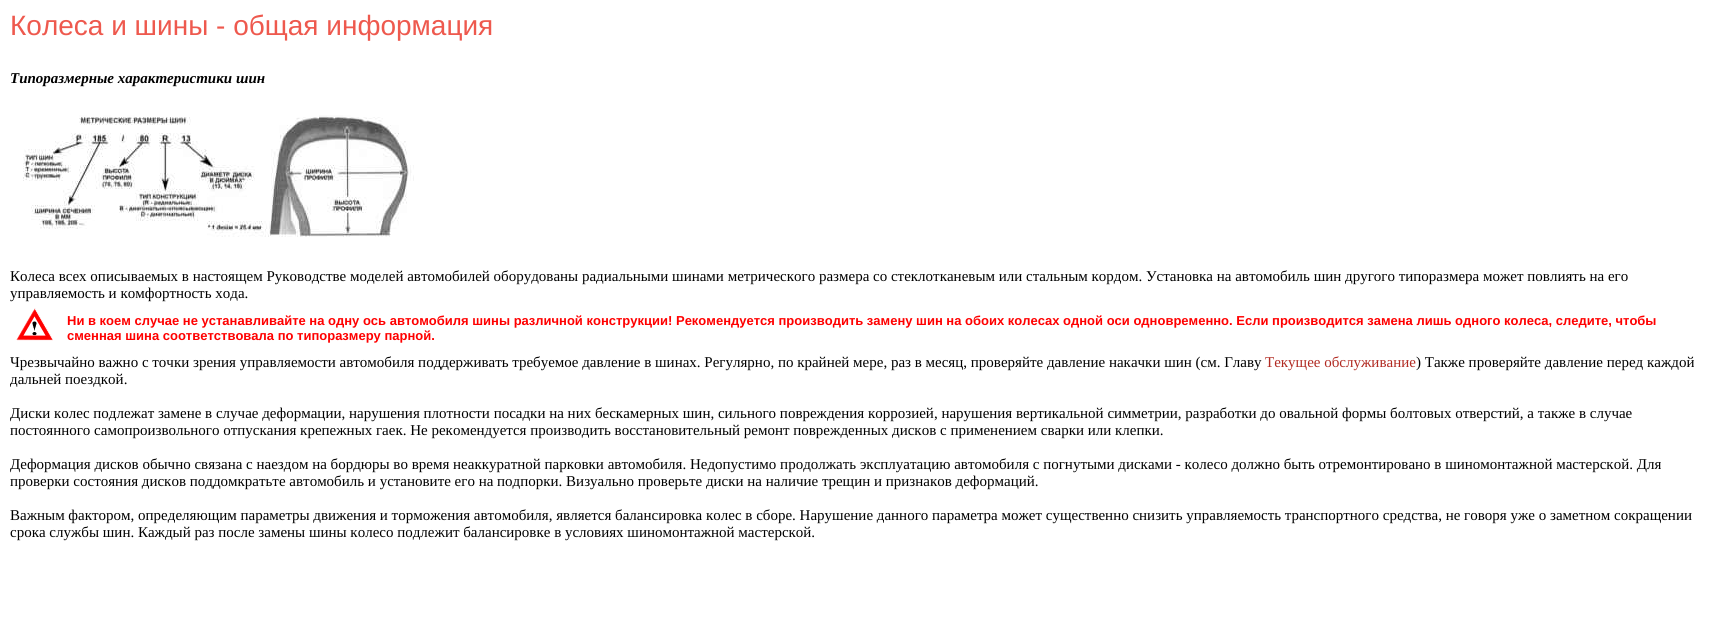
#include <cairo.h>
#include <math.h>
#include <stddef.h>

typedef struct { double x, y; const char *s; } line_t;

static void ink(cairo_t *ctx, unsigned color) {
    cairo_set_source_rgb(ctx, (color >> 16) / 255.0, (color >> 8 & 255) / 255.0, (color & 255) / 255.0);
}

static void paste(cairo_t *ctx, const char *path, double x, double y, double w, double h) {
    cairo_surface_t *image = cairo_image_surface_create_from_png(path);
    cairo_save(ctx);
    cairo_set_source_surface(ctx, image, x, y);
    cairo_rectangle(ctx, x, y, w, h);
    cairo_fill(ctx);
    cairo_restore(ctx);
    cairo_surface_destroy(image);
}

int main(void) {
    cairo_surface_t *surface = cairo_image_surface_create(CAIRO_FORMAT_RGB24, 1714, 629);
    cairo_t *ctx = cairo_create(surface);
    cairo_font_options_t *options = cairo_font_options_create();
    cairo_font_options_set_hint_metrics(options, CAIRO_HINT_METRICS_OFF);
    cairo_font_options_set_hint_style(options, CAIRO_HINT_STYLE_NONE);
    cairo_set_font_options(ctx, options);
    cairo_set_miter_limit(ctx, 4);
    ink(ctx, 0xFFFFFF);
    cairo_paint(ctx);
    cairo_select_font_face(ctx, "Liberation Sans", CAIRO_FONT_SLANT_NORMAL, CAIRO_FONT_WEIGHT_NORMAL);
    cairo_set_font_size(ctx, 28);
    ink(ctx, 0xEE594E);
    cairo_move_to(ctx, 10, 35);
    cairo_show_text(ctx, "Колеса и шины - общая информация");
    cairo_select_font_face(ctx, "Liberation Serif", CAIRO_FONT_SLANT_ITALIC, CAIRO_FONT_WEIGHT_BOLD);
    cairo_set_font_size(ctx, 15);
    ink(ctx, 0x000000);
    cairo_move_to(ctx, 10, 83);
    cairo_show_text(ctx, "Типоразмерные характеристики шин");
    paste(ctx, "media/1.png", 23, 115, 391, 122);
    cairo_select_font_face(ctx, "Liberation Serif", CAIRO_FONT_SLANT_NORMAL, CAIRO_FONT_WEIGHT_NORMAL);
    cairo_move_to(ctx, 10, 281);
    cairo_show_text(ctx, "Колеса всех описываемых в настоящем Руководстве моделей автомобилей оборудованы радиальными шинами метрического размера со стеклотканевым или стальным кордом. Установка на автомобиль шин другого типоразмера может повлиять на его");
    cairo_move_to(ctx, 10, 298);
    cairo_show_text(ctx, "управляемость и комфортность хода.");
    paste(ctx, "media/2.png", 16, 308, 37, 33);
    cairo_select_font_face(ctx, "Liberation Sans", CAIRO_FONT_SLANT_NORMAL, CAIRO_FONT_WEIGHT_BOLD);
    cairo_set_font_size(ctx, 13);
    ink(ctx, 0xFF0000);
    cairo_move_to(ctx, 67, 325);
    cairo_show_text(ctx, "Ни в коем случае не устанавливайте на одну ось автомобиля шины различной конструкции! Рекомендуется производить замену шин на обоих колесах одной оси одновременно. Если производится замена лишь одного колеса, следите, чтобы");
    cairo_move_to(ctx, 67, 340);
    cairo_show_text(ctx, "сменная шина соответствовала по типоразмеру парной.");
    cairo_select_font_face(ctx, "Liberation Serif", CAIRO_FONT_SLANT_NORMAL, CAIRO_FONT_WEIGHT_NORMAL);
    cairo_set_font_size(ctx, 15);
    ink(ctx, 0x000000);
    cairo_move_to(ctx, 10, 367);
    cairo_show_text(ctx, "Чрезвычайно важно с точки зрения управляемости автомобиля поддерживать требуемое давление в шинах. Регулярно, по крайней мере, раз в месяц, проверяйте давление накачки шин (см. Главу");
    ink(ctx, 0xB12A22);
    cairo_move_to(ctx, 1265, 367);
    cairo_show_text(ctx, "Текущее обслуживание");
    ink(ctx, 0x000000);
    {
        static const line_t items[] = {
            {1416, 367, ") Также проверяйте давление перед каждой"},
            {10, 384, "дальней поездкой."},
            {10, 418, "Диски колес подлежат замене в случае деформации, нарушения плотности посадки на них бескамерных шин, сильного повреждения коррозией, нарушения вертикальной симметрии, разработки до овальной формы болтовых отверстий, а также в случае"},
            {10, 435, "постоянного самопроизвольного отпускания крепежных гаек. Не рекомендуется производить восстановительный ремонт поврежденных дисков с применением сварки или клепки."},
            {10, 469, "Деформация дисков обычно связана с наездом на бордюры во время неаккуратной парковки автомобиля. Недопустимо продолжать эксплуатацию автомобиля с погнутыми дисками - колесо должно быть отремонтировано в шиномонтажной мастерской. Для"},
            {10, 486, "проверки состояния дисков поддомкратьте автомобиль и установите его на подпорки. Визуально проверьте диски на наличие трещин и признаков деформаций."},
            {10, 520, "Важным фактором, определяющим параметры движения и торможения автомобиля, является балансировка колес в сборе. Нарушение данного параметра может существенно снизить управляемость транспортного средства, не говоря уже о заметном сокращении"},
            {10, 537, "срока службы шин. Каждый раз после замены шины колесо подлежит балансировке в условиях шиномонтажной мастерской."},
        };
        for (size_t i = 0; i < sizeof items / sizeof *items; i++) {
            cairo_move_to(ctx, items[i].x, items[i].y);
            cairo_show_text(ctx, items[i].s);
        }
    }
    cairo_surface_write_to_png(surface, "image.png");
    cairo_font_options_destroy(options);
    cairo_destroy(ctx);
    cairo_surface_destroy(surface);
    return 0;
}
